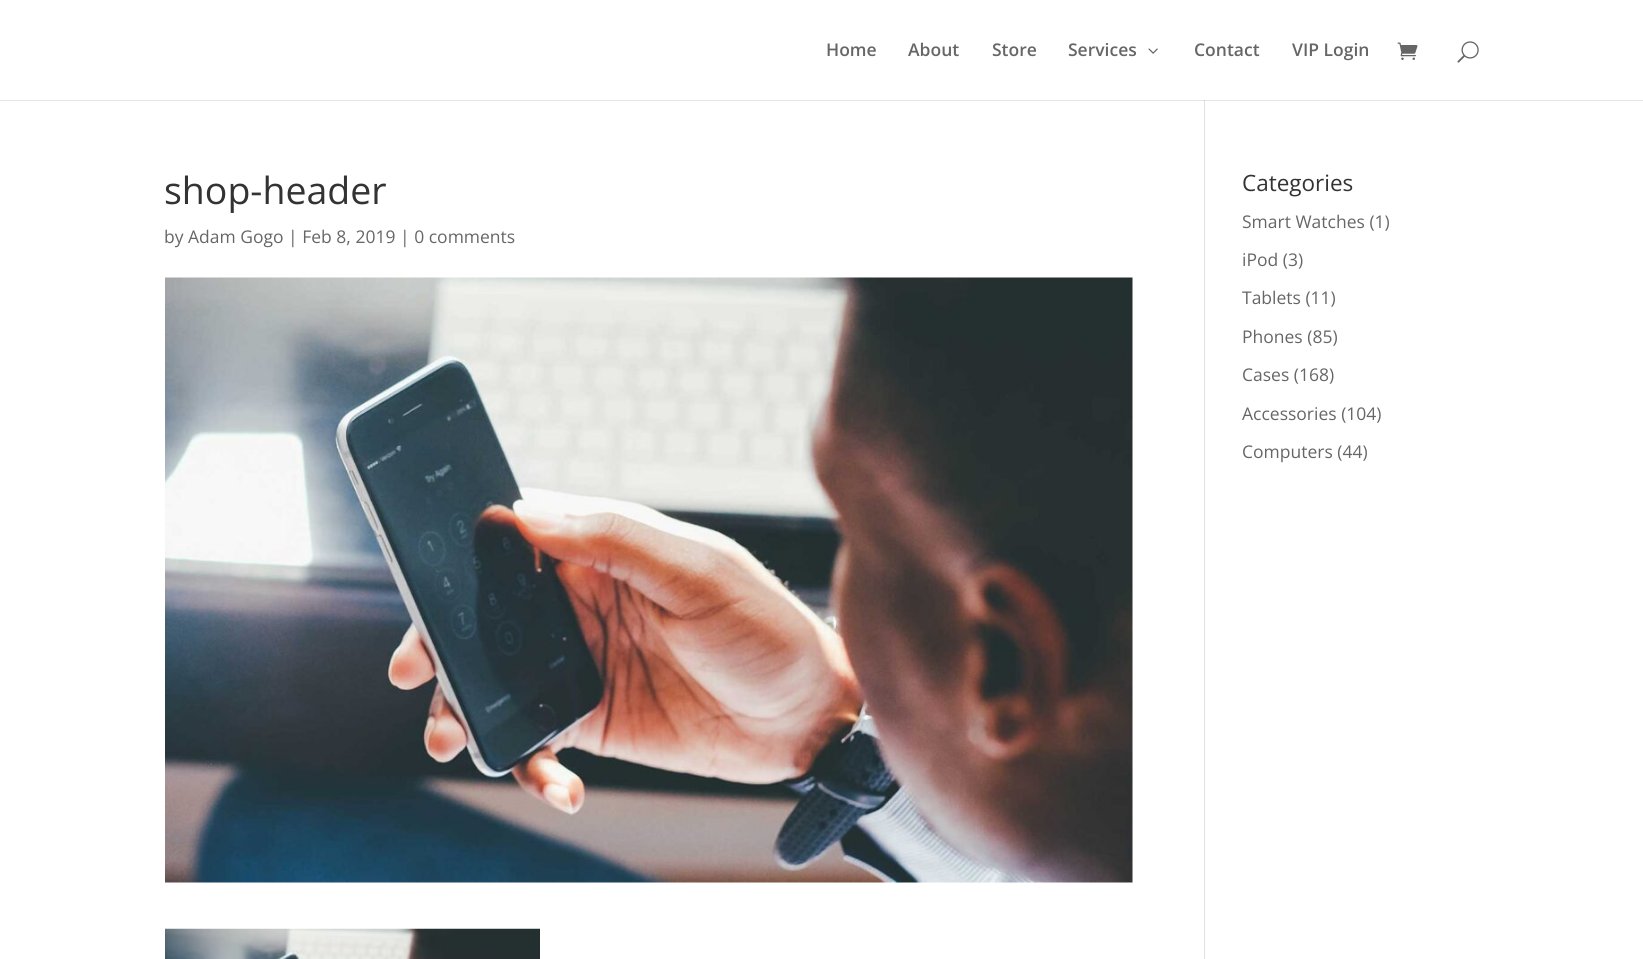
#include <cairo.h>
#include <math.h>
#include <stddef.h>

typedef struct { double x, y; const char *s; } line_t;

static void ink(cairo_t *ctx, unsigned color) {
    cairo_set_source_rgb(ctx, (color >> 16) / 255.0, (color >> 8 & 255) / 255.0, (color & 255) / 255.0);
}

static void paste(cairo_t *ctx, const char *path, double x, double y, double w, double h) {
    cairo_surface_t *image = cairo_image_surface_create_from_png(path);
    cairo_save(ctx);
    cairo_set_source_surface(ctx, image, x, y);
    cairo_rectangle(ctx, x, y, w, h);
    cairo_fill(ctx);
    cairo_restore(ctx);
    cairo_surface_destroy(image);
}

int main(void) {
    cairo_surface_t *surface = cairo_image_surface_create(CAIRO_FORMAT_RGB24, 1643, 959);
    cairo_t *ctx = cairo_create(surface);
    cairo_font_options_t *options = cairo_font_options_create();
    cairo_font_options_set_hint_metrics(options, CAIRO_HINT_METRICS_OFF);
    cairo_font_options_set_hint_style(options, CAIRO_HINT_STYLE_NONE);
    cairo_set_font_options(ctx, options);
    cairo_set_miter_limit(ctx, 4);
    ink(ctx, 0xFFFFFF);
    cairo_paint(ctx);
    ink(ctx, 0xE2E2E2);
    cairo_rectangle(ctx, 1204, 99, 1, 860);
    cairo_fill(ctx);
    cairo_set_source_rgba(ctx, 0, 0, 0, 0.1);
    cairo_new_path(ctx);
    cairo_move_to(ctx, 0, 100);
    cairo_line_to(ctx, 0, 101);
    cairo_line_to(ctx, 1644, 101);
    cairo_line_to(ctx, 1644, 1);
    cairo_line_to(ctx, 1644, 100);
    cairo_close_path(ctx);
    cairo_fill(ctx);
    ink(ctx, 0xFFFFFF);
    cairo_rectangle(ctx, 1204, 99, 1, 1);
    cairo_fill(ctx);
    cairo_select_font_face(ctx, "Open Sans SemiBold", CAIRO_FONT_SLANT_NORMAL, CAIRO_FONT_WEIGHT_NORMAL);
    cairo_set_font_size(ctx, 17.5);
    ink(ctx, 0x666666);
    {
        static const line_t items[] = {
            {826, 56, "Home"},
            {908, 56, "About"},
            {992, 56, "Store"},
            {1068, 56, "Services"},
        };
        for (size_t i = 0; i < sizeof items / sizeof *items; i++) {
            cairo_move_to(ctx, items[i].x, items[i].y);
            cairo_show_text(ctx, items[i].s);
        }
    }
    paste(ctx, "media/1.png", 1148, 48, 10, 6);
    cairo_move_to(ctx, 1194, 56);
    cairo_show_text(ctx, "Contact");
    cairo_move_to(ctx, 1292, 56);
    cairo_show_text(ctx, "VIP Login");
    paste(ctx, "media/2.png", 1397, 42, 21, 18);
    paste(ctx, "media/3.png", 1457, 41, 22, 22);
    cairo_select_font_face(ctx, "Open Sans", CAIRO_FONT_SLANT_NORMAL, CAIRO_FONT_WEIGHT_NORMAL);
    cairo_set_font_size(ctx, 37.5);
    ink(ctx, 0x333333);
    cairo_move_to(ctx, 164, 204);
    cairo_show_text(ctx, "shop-header");
    cairo_set_font_size(ctx, 17.5);
    ink(ctx, 0x666666);
    cairo_move_to(ctx, 164, 243);
    cairo_show_text(ctx, "by Adam Gogo | Feb 8, 2019 | 0 comments");
    paste(ctx, "media/4.png", 165, 277, 968, 606);
    paste(ctx, "media/5.png", 165, 928, 375, 31);
    cairo_set_font_size(ctx, 22.5);
    ink(ctx, 0x333333);
    cairo_move_to(ctx, 1242, 191);
    cairo_show_text(ctx, "Categories");
    cairo_set_font_size(ctx, 17.5);
    ink(ctx, 0x666666);
    {
        static const line_t items[] = {
            {1242, 228, "Smart Watches (1)"},
            {1242, 266, "iPod (3)"},
            {1242, 304, "Tablets (11)"},
            {1242, 343, "Phones (85)"},
            {1242, 381, "Cases (168)"},
            {1242, 420, "Accessories (104)"},
            {1242, 458, "Computers (44)"},
        };
        for (size_t i = 0; i < sizeof items / sizeof *items; i++) {
            cairo_move_to(ctx, items[i].x, items[i].y);
            cairo_show_text(ctx, items[i].s);
        }
    }
    cairo_surface_write_to_png(surface, "image.png");
    cairo_font_options_destroy(options);
    cairo_destroy(ctx);
    cairo_surface_destroy(surface);
    return 0;
}
